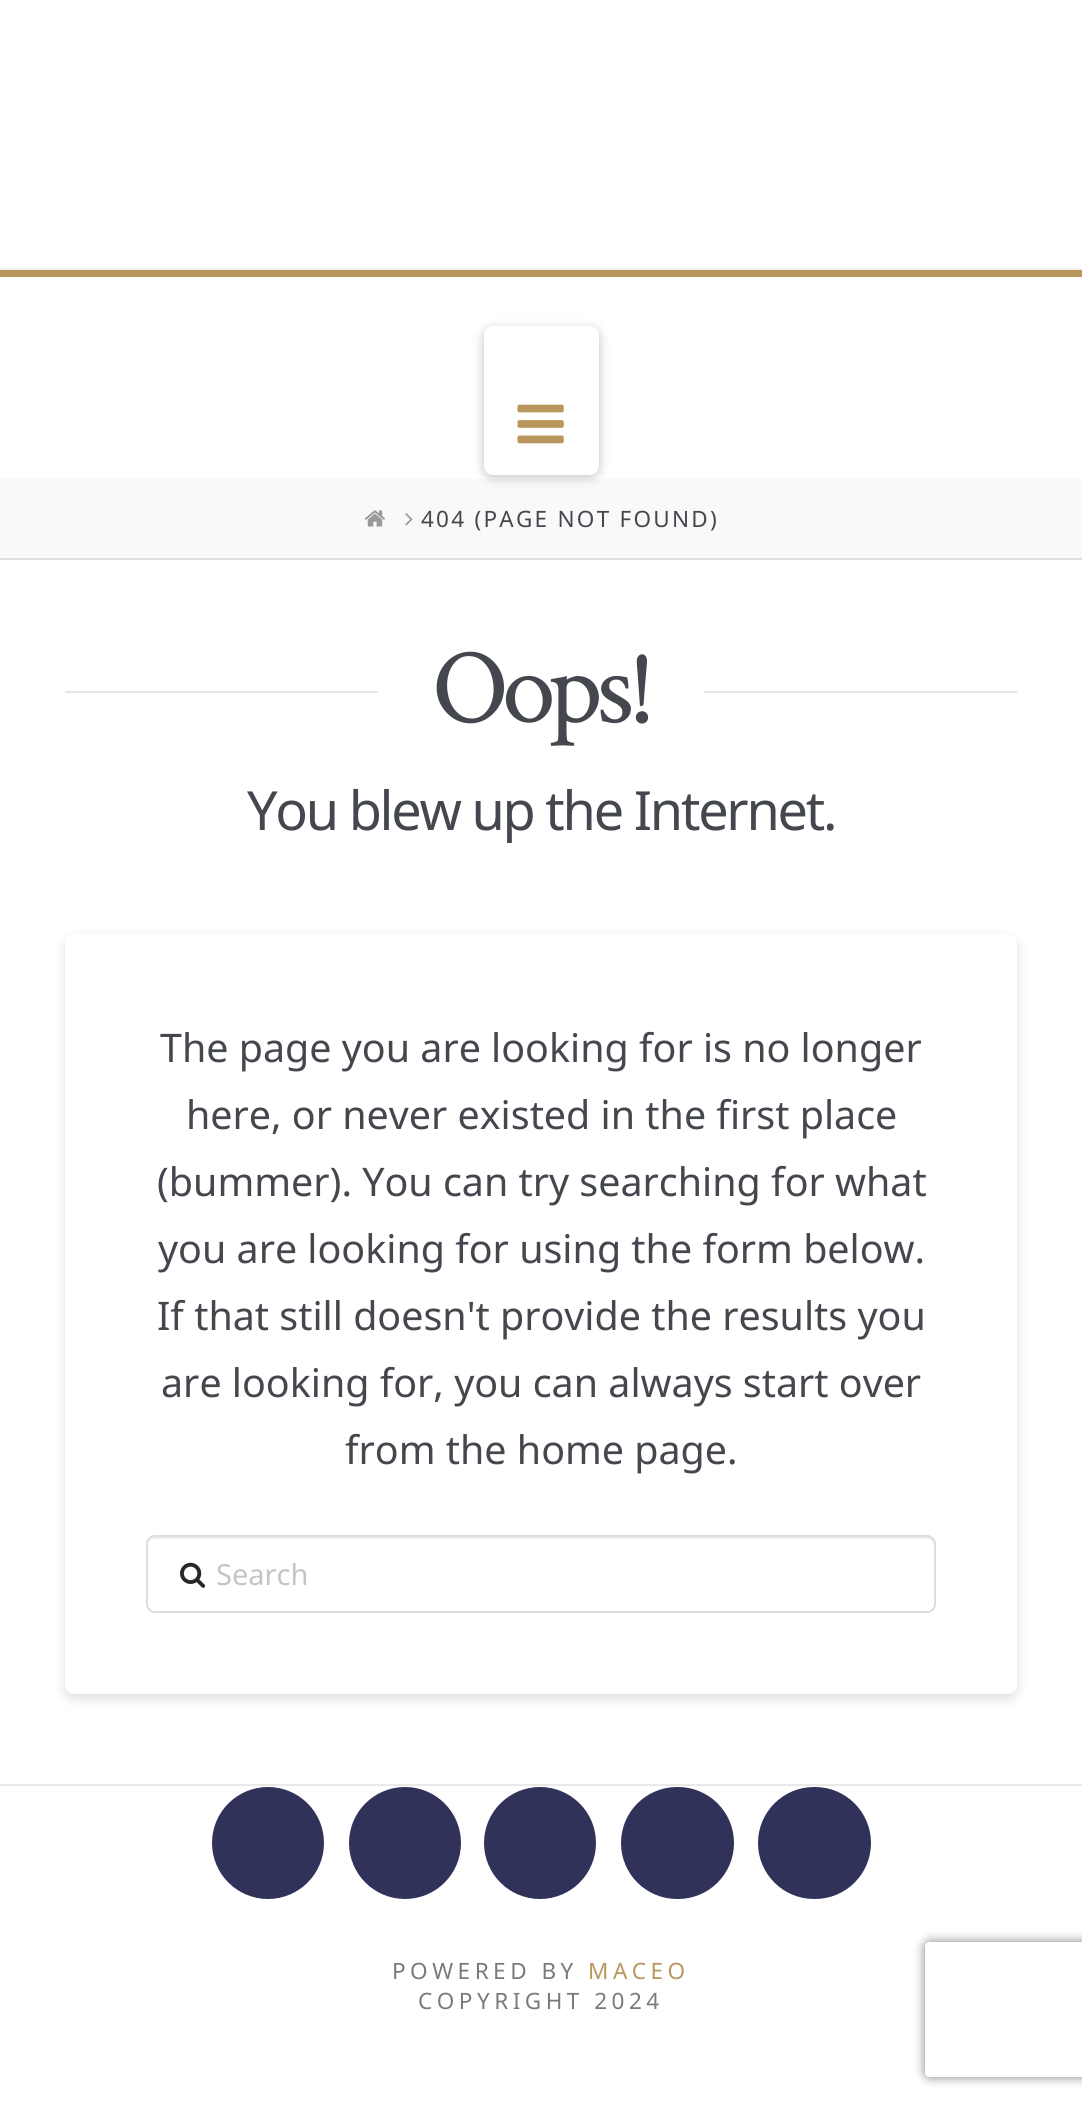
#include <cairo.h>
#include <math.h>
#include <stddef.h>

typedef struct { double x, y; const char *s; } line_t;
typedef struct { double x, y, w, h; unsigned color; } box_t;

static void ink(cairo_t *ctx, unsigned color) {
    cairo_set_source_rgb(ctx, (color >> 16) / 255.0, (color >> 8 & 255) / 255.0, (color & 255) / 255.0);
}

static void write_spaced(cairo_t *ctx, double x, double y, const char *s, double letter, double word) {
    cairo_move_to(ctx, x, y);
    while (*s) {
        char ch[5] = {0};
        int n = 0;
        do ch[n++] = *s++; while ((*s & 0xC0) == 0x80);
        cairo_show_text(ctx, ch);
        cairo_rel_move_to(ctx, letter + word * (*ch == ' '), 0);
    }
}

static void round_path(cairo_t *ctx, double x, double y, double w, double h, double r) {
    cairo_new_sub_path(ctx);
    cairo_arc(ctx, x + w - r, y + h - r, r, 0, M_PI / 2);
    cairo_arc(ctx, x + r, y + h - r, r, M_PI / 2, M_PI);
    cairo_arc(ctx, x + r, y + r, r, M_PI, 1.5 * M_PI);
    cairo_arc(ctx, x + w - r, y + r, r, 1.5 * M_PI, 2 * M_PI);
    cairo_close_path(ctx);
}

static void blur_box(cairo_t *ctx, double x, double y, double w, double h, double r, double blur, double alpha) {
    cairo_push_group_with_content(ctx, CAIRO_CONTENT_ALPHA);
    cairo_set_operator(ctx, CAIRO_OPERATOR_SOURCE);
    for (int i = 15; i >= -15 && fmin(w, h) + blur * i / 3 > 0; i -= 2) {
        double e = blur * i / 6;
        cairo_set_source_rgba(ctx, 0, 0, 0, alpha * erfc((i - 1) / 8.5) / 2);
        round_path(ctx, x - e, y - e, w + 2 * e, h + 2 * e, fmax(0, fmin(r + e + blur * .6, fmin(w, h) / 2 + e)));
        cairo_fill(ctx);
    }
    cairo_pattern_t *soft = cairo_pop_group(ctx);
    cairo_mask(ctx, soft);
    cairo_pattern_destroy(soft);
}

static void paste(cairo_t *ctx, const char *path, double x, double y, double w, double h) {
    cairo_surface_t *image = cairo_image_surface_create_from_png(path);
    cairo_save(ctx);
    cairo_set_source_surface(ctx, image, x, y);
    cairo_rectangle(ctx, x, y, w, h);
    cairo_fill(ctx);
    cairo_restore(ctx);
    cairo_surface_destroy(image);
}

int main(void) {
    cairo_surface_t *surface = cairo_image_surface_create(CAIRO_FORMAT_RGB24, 1082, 2107);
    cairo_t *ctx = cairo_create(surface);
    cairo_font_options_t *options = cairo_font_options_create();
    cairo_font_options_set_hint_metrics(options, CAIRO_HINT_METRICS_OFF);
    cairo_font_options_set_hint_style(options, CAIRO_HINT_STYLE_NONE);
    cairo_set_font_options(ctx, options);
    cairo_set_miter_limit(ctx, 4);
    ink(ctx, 0xFFFFFF);
    cairo_paint(ctx);
    {
        static const box_t items[] = {
            {0, 268, 1082, 2, 0xF2F2F2},
            {0, 270, 1082, 7, 0xB9965C},
            {0, 479, 1082, 79, 0xF9F9F9},
        };
        for (size_t i = 0; i < sizeof items / sizeof *items; i++) {
            ink(ctx, items[i].color);
            cairo_rectangle(ctx, items[i].x, items[i].y, items[i].w, items[i].h);
            cairo_fill(ctx);
        }
    }
    ink(ctx, 0x000000);
    blur_box(ctx, 484, 329, 115, 148, 9, 5.5, 0.25);
    ink(ctx, 0xFFFFFF);
    round_path(ctx, 484, 326, 115, 149, 9);
    cairo_fill(ctx);
    paste(ctx, "media/1.png", 517, 404, 47, 40);
    ink(ctx, 0xE0E0E0);
    cairo_rectangle(ctx, 0, 558, 1082, 2);
    cairo_fill(ctx);
    paste(ctx, "media/2.png", 364, 510, 21, 17);
    paste(ctx, "media/3.png", 405, 513, 8, 13);
    cairo_select_font_face(ctx, "Noto Sans", CAIRO_FONT_SLANT_NORMAL, CAIRO_FONT_WEIGHT_NORMAL);
    cairo_set_font_size(ctx, 22.5);
    ink(ctx, 0x44474E);
    write_spaced(ctx, 421, 527, "404 (PAGE NOT FOUND)", 2.25, 0);
    ink(ctx, 0xE6E6E6);
    cairo_rectangle(ctx, 65, 691, 313, 2);
    cairo_fill(ctx);
    cairo_select_font_face(ctx, "Crimson Text", CAIRO_FONT_SLANT_NORMAL, CAIRO_FONT_WEIGHT_NORMAL);
    cairo_set_font_size(ctx, 108);
    ink(ctx, 0x44474E);
    write_spaced(ctx, 432, 722, "Oops!", -6.75, 0);
    ink(ctx, 0xE6E6E6);
    cairo_rectangle(ctx, 704, 691, 313, 2);
    cairo_fill(ctx);
    cairo_select_font_face(ctx, "Noto Sans", CAIRO_FONT_SLANT_NORMAL, CAIRO_FONT_WEIGHT_NORMAL);
    cairo_set_font_size(ctx, 54);
    ink(ctx, 0x44474E);
    write_spaced(ctx, 247, 830, "You blew up the Internet.", -2.25, 0);
    ink(ctx, 0x000000);
    blur_box(ctx, 65, 938, 952, 761, 9, 5.5, 0.13);
    ink(ctx, 0xFFFFFF);
    round_path(ctx, 65, 934, 952, 760, 9);
    cairo_fill(ctx);
    cairo_set_font_size(ctx, 39.4);
    ink(ctx, 0x44474E);
    {
        static const line_t items[] = {
            {160, 1062, "The page you are looking for is no longer"},
            {186, 1129, "here, or never existed in the first place"},
            {157, 1196, "(bummer). You can try searching for what"},
            {158, 1263, "you are looking for using the form below."},
            {157, 1330, "If that still doesn't provide the results you"},
            {161, 1397, "are looking for, you can always start over"},
            {345, 1464, "from the home page."},
        };
        for (size_t i = 0; i < sizeof items / sizeof *items; i++) {
            cairo_move_to(ctx, items[i].x, items[i].y);
            cairo_show_text(ctx, items[i].s);
        }
    }
    ink(ctx, 0xECECEC);
    cairo_new_path(ctx);
    cairo_move_to(ctx, 155, 1539);
    cairo_line_to(ctx, 927, 1539);
    cairo_curve_to(ctx, 931, 1539, 934, 1542, 934, 1546);
    cairo_line_to(ctx, 934, 1544);
    cairo_curve_to(ctx, 934, 1540, 931, 1537, 927, 1537);
    cairo_line_to(ctx, 156, 1537);
    cairo_curve_to(ctx, 153, 1537, 150, 1539, 149, 1542);
    cairo_curve_to(ctx, 151, 1540, 153, 1539, 155, 1539);
    cairo_close_path(ctx);
    cairo_fill(ctx);
    round_path(ctx, 147, 1536, 788, 76, 8);
    ink(ctx, 0xDDDDDD);
    cairo_stroke(ctx);
    paste(ctx, "media/4.png", 180, 1562, 25, 26);
    cairo_set_font_size(ctx, 29);
    ink(ctx, 0xC5C5C5);
    cairo_move_to(ctx, 216, 1585);
    cairo_show_text(ctx, "Search");
    ink(ctx, 0xE9E9E9);
    cairo_rectangle(ctx, 0, 1784, 1082, 2);
    cairo_fill(ctx);
    ink(ctx, 0x31325A);
    cairo_arc(ctx, 268, 1843, 53.5, 0, 2 * M_PI);
    cairo_fill_preserve(ctx);
    cairo_set_line_width(ctx, 5);
    cairo_stroke(ctx);
    cairo_arc(ctx, 405, 1843, 53.5, 0, 2 * M_PI);
    cairo_fill_preserve(ctx);
    cairo_stroke(ctx);
    cairo_arc(ctx, 540, 1843, 53.5, 0, 2 * M_PI);
    cairo_fill_preserve(ctx);
    cairo_stroke(ctx);
    round_path(ctx, 623.5, 1789.5, 108, 107, 53.5);
    cairo_fill_preserve(ctx);
    cairo_stroke(ctx);
    round_path(ctx, 760.5, 1789.5, 108, 107, 53.5);
    cairo_fill_preserve(ctx);
    cairo_stroke(ctx);
    cairo_set_font_size(ctx, 22.5);
    ink(ctx, 0x7A7A7A);
    write_spaced(ctx, 392, 1979, "POWERED BY", 4.5, 0);
    ink(ctx, 0xB9965C);
    write_spaced(ctx, 588, 1979, "MACEO", 4.5, 0);
    ink(ctx, 0x7A7A7A);
    write_spaced(ctx, 418, 2009, "COPYRIGHT 2024", 4.5, 0);
    cairo_save(ctx);
    cairo_set_fill_rule(ctx, CAIRO_FILL_RULE_EVEN_ODD);
    cairo_new_path(ctx);
    cairo_move_to(ctx, 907, 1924);
    cairo_line_to(ctx, 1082, 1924);
    cairo_line_to(ctx, 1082, 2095);
    cairo_line_to(ctx, 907, 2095);
    cairo_close_path(ctx);
    cairo_move_to(ctx, 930, 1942);
    cairo_line_to(ctx, 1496, 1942);
    cairo_curve_to(ctx, 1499, 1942, 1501, 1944, 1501, 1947);
    cairo_line_to(ctx, 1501, 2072);
    cairo_curve_to(ctx, 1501, 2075, 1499, 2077, 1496, 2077);
    cairo_line_to(ctx, 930, 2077);
    cairo_curve_to(ctx, 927, 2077, 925, 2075, 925, 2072);
    cairo_line_to(ctx, 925, 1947);
    cairo_curve_to(ctx, 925, 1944, 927, 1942, 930, 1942);
    cairo_close_path(ctx);
    cairo_clip(ctx);
    ink(ctx, 0x808080);
    blur_box(ctx, 925, 1942, 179, 135, 5, 5.5, 1);
    cairo_restore(ctx);
    cairo_surface_write_to_png(surface, "image.png");
    cairo_font_options_destroy(options);
    cairo_destroy(ctx);
    cairo_surface_destroy(surface);
    return 0;
}
